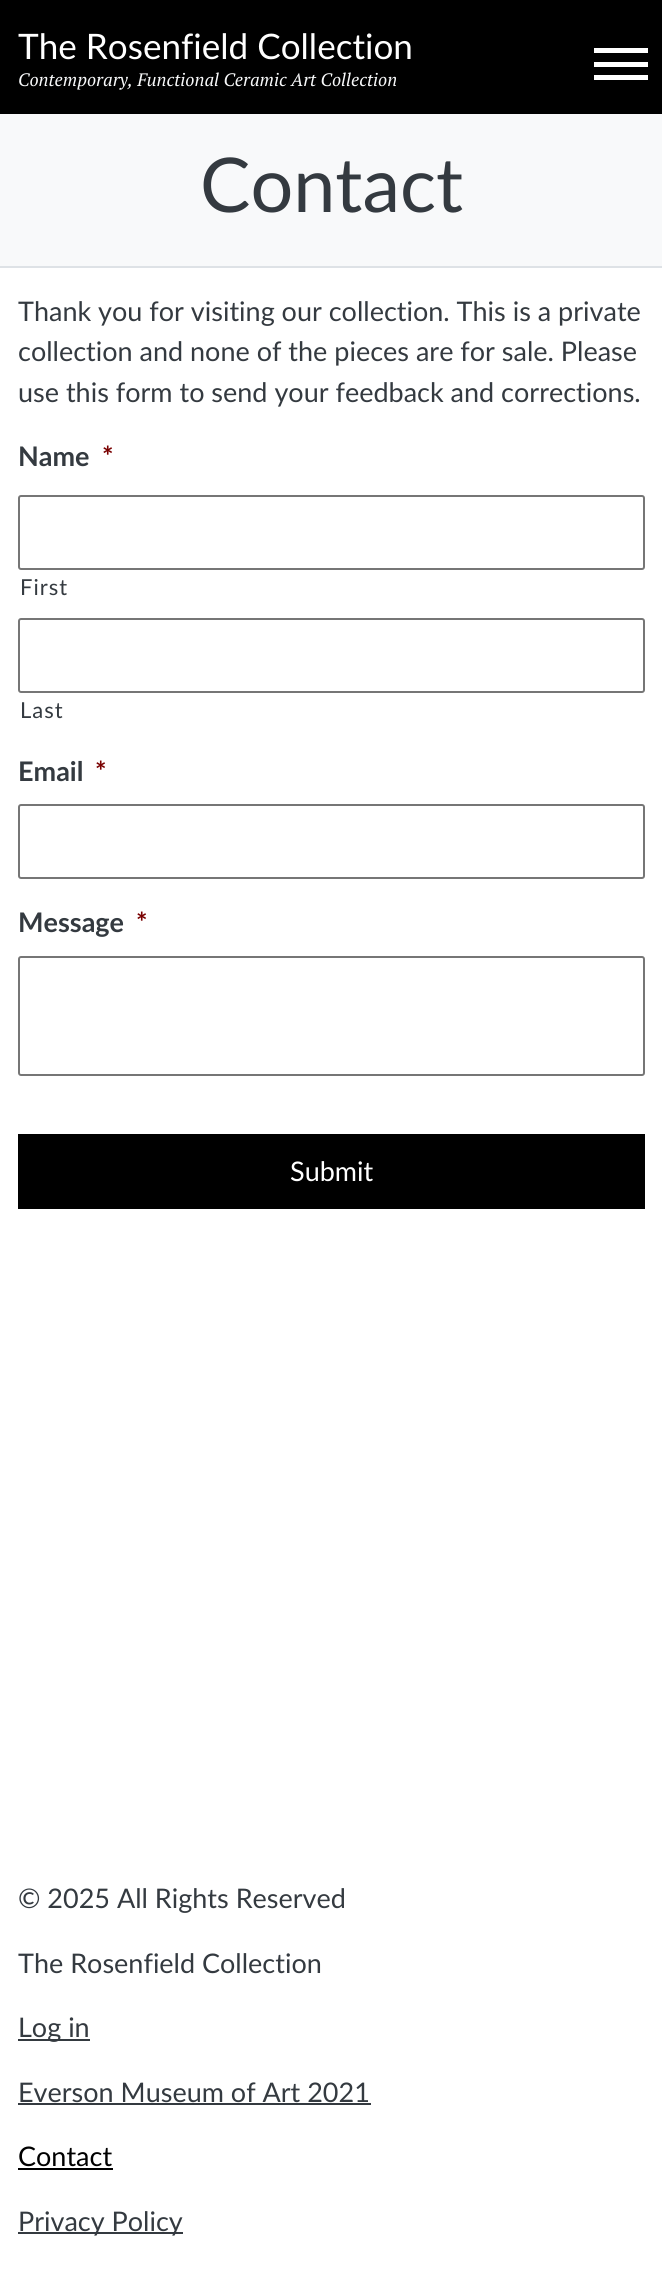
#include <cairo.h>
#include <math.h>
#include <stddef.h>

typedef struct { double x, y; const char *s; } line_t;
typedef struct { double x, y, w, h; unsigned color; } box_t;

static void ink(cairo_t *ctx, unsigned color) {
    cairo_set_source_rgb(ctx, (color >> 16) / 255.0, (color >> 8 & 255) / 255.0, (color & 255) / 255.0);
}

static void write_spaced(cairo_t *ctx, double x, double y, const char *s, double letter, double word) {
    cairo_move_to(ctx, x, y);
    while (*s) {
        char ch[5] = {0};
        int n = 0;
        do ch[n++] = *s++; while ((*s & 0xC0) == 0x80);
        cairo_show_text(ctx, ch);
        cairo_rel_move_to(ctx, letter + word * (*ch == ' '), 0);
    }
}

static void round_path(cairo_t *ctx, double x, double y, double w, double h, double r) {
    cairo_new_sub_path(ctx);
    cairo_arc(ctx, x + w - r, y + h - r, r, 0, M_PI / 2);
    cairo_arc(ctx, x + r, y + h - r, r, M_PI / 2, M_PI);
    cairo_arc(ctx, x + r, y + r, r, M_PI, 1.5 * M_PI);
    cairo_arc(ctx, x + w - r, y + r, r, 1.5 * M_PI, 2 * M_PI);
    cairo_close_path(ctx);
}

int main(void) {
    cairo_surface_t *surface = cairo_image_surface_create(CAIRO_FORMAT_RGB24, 662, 2276);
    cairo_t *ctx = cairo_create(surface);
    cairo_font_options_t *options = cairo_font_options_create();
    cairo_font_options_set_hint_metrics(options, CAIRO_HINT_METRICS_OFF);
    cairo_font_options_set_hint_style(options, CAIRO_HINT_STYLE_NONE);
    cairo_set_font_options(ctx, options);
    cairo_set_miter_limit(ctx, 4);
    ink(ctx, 0xFFFFFF);
    cairo_paint(ctx);
    ink(ctx, 0x000000);
    cairo_rectangle(ctx, 0, 0, 662, 114);
    cairo_fill(ctx);
    cairo_select_font_face(ctx, "Lato", CAIRO_FONT_SLANT_NORMAL, CAIRO_FONT_WEIGHT_NORMAL);
    cairo_set_font_size(ctx, 35.1);
    ink(ctx, 0xFFFFFF);
    cairo_move_to(ctx, 18, 59);
    cairo_show_text(ctx, "The Rosenfield Collection");
    cairo_select_font_face(ctx, "PT Serif", CAIRO_FONT_SLANT_ITALIC, CAIRO_FONT_WEIGHT_NORMAL);
    cairo_set_font_size(ctx, 18);
    ink(ctx, 0xF8F9FA);
    cairo_move_to(ctx, 18, 86);
    cairo_show_text(ctx, "Contemporary, Functional Ceramic Art Collection");
    {
        static const box_t items[] = {
            {594, 62, 54, 5, 0xFFFFFF},
            {594, 48, 54, 5, 0xFFFFFF},
            {594, 75, 54, 5, 0xFFFFFF},
            {0, 114, 662, 152, 0xF8F9FA},
            {0, 266, 662, 2, 0xDEE2E6},
        };
        for (size_t i = 0; i < sizeof items / sizeof *items; i++) {
            ink(ctx, items[i].color);
            cairo_rectangle(ctx, items[i].x, items[i].y, items[i].w, items[i].h);
            cairo_fill(ctx);
        }
    }
    cairo_select_font_face(ctx, "Lato", CAIRO_FONT_SLANT_NORMAL, CAIRO_FONT_WEIGHT_NORMAL);
    cairo_set_font_size(ctx, 75.5);
    ink(ctx, 0x343A40);
    cairo_move_to(ctx, 200, 212);
    cairo_show_text(ctx, "Contact");
    cairo_set_font_size(ctx, 27);
    {
        static const line_t items[] = {
            {18, 321, "Thank you for visiting our collection. This is a private"},
            {18, 361, "collection and none of the pieces are for sale. Please"},
            {18, 402, "use this form to send your feedback and corrections."},
        };
        for (size_t i = 0; i < sizeof items / sizeof *items; i++) {
            cairo_move_to(ctx, items[i].x, items[i].y);
            cairo_show_text(ctx, items[i].s);
        }
    }
    cairo_select_font_face(ctx, "Lato", CAIRO_FONT_SLANT_NORMAL, CAIRO_FONT_WEIGHT_BOLD);
    cairo_move_to(ctx, 18, 466);
    cairo_show_text(ctx, "Name");
    ink(ctx, 0x790000);
    cairo_move_to(ctx, 102, 466);
    cairo_show_text(ctx, "*");
    round_path(ctx, 19, 496, 625, 73, 2);
    ink(ctx, 0x767676);
    cairo_stroke(ctx);
    cairo_select_font_face(ctx, "Lato", CAIRO_FONT_SLANT_NORMAL, CAIRO_FONT_WEIGHT_NORMAL);
    cairo_set_font_size(ctx, 22);
    ink(ctx, 0x343A40);
    write_spaced(ctx, 20, 595, "First", 1, 0);
    round_path(ctx, 19, 619, 625, 73, 2);
    ink(ctx, 0x767676);
    cairo_stroke(ctx);
    ink(ctx, 0x343A40);
    write_spaced(ctx, 20, 718, "Last", 1, 0);
    cairo_select_font_face(ctx, "Lato", CAIRO_FONT_SLANT_NORMAL, CAIRO_FONT_WEIGHT_BOLD);
    cairo_set_font_size(ctx, 27);
    cairo_move_to(ctx, 18, 781);
    cairo_show_text(ctx, "Email");
    ink(ctx, 0x790000);
    cairo_move_to(ctx, 95, 781);
    cairo_show_text(ctx, "*");
    round_path(ctx, 19, 805, 625, 73, 2);
    ink(ctx, 0x767676);
    cairo_stroke(ctx);
    ink(ctx, 0x343A40);
    cairo_move_to(ctx, 18, 932);
    cairo_show_text(ctx, "Message");
    ink(ctx, 0x790000);
    cairo_move_to(ctx, 136, 932);
    cairo_show_text(ctx, "*");
    round_path(ctx, 19, 957, 625, 118, 2);
    ink(ctx, 0x767676);
    cairo_stroke(ctx);
    ink(ctx, 0x000000);
    cairo_rectangle(ctx, 18, 1134, 627, 75);
    cairo_fill(ctx);
    cairo_select_font_face(ctx, "Lato", CAIRO_FONT_SLANT_NORMAL, CAIRO_FONT_WEIGHT_NORMAL);
    ink(ctx, 0xFFFFFF);
    cairo_move_to(ctx, 290, 1181);
    cairo_show_text(ctx, "Submit");
    ink(ctx, 0x343A40);
    cairo_move_to(ctx, 18, 1908);
    cairo_show_text(ctx, "© 2025 All Rights Reserved");
    cairo_move_to(ctx, 18, 1973);
    cairo_show_text(ctx, "The Rosenfield Collection");
    cairo_rectangle(ctx, 18, 2039, 72, 2);
    cairo_fill(ctx);
    cairo_move_to(ctx, 18, 2037);
    cairo_show_text(ctx, "Log in");
    cairo_move_to(ctx, 18, 2102);
    cairo_show_text(ctx, "Everson Museum of Art 2021");
    cairo_rectangle(ctx, 18, 2103, 353, 2);
    cairo_fill(ctx);
    ink(ctx, 0x000000);
    cairo_move_to(ctx, 18, 2166);
    cairo_show_text(ctx, "Contact");
    cairo_rectangle(ctx, 18, 2168, 95, 2);
    cairo_fill(ctx);
    ink(ctx, 0x343A40);
    cairo_rectangle(ctx, 18, 2232, 165, 2);
    cairo_fill(ctx);
    cairo_move_to(ctx, 18, 2231);
    cairo_show_text(ctx, "Privacy Policy");
    cairo_surface_write_to_png(surface, "image.png");
    cairo_font_options_destroy(options);
    cairo_destroy(ctx);
    cairo_surface_destroy(surface);
    return 0;
}
